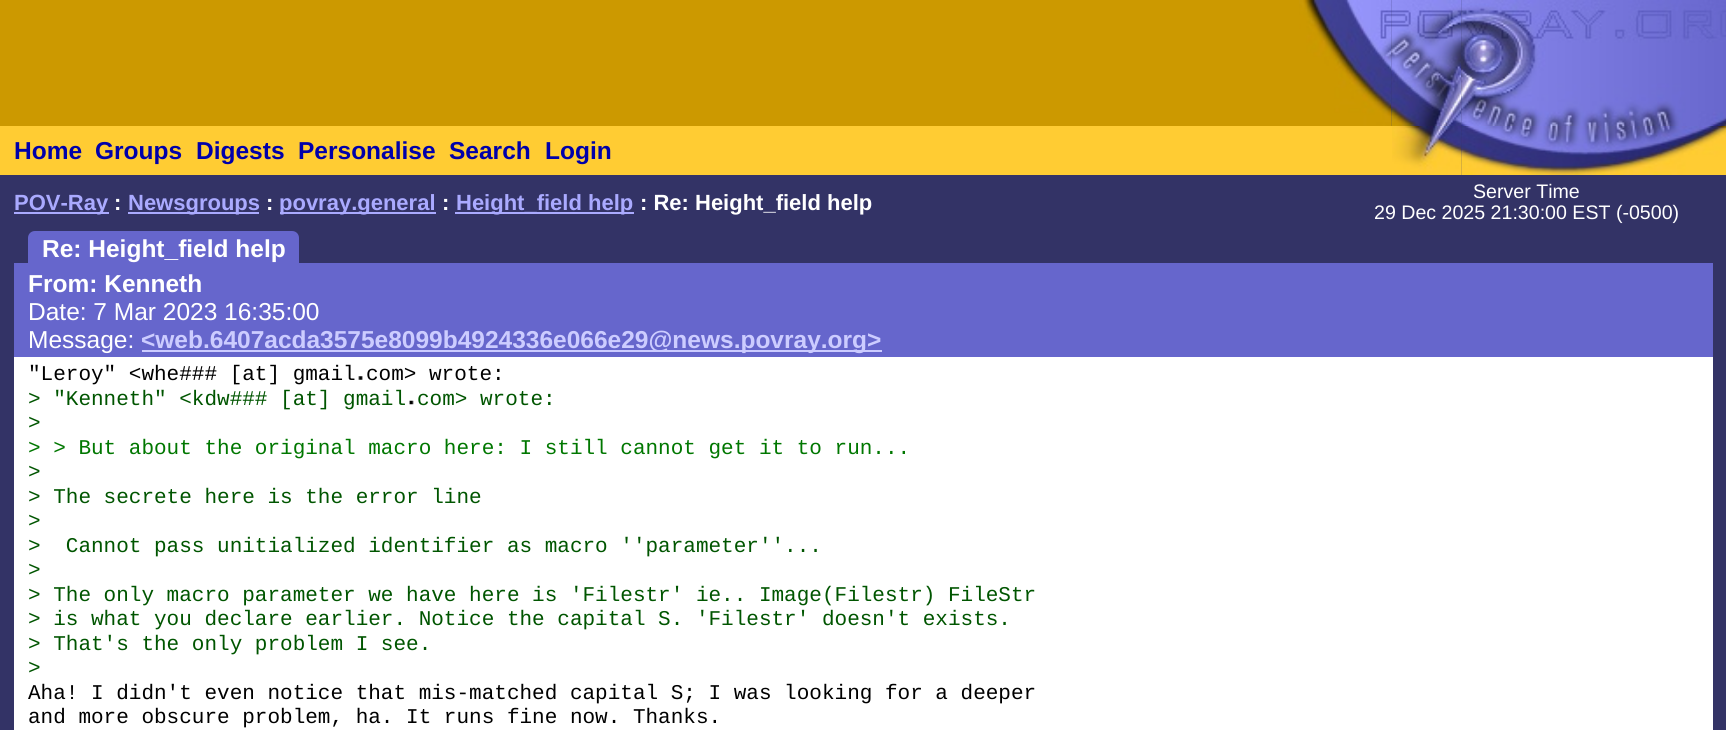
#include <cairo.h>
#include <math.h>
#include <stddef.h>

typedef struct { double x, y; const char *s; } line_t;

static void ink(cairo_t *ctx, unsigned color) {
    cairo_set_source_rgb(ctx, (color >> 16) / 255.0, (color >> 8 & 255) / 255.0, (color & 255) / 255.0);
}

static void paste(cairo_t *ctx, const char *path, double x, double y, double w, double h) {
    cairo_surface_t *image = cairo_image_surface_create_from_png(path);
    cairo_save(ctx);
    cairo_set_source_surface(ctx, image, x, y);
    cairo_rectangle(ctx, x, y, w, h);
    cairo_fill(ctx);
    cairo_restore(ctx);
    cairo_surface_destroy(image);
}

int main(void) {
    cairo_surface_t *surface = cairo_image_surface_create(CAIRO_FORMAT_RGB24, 1726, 730);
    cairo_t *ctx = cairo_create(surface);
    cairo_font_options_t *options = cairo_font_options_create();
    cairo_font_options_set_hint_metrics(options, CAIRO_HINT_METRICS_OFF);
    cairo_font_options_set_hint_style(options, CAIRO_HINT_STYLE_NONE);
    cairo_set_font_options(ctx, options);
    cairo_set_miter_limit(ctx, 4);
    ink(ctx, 0x333366);
    cairo_paint(ctx);
    ink(ctx, 0xCC9900);
    cairo_rectangle(ctx, 0, 0, 1299, 126);
    cairo_fill(ctx);
    paste(ctx, "media/1.png", 1299, 0, 93, 126);
    paste(ctx, "media/2.png", 1391, 0, 71, 126);
    paste(ctx, "media/3.png", 1461, 0, 265, 126);
    ink(ctx, 0xFFCC33);
    cairo_rectangle(ctx, 0, 126, 1392, 49);
    cairo_fill(ctx);
    cairo_select_font_face(ctx, "Liberation Sans", CAIRO_FONT_SLANT_NORMAL, CAIRO_FONT_WEIGHT_BOLD);
    cairo_set_font_size(ctx, 24.5);
    ink(ctx, 0x0000AA);
    {
        static const line_t items[] = {
            {14, 159, "Home"},
            {95, 159, "Groups"},
            {196, 159, "Digests"},
            {298, 159, "Personalise"},
            {449, 159, "Search"},
            {545, 159, "Login"},
        };
        for (size_t i = 0; i < sizeof items / sizeof *items; i++) {
            cairo_move_to(ctx, items[i].x, items[i].y);
            cairo_show_text(ctx, items[i].s);
        }
    }
    paste(ctx, "media/4.png", 1392, 126, 70, 49);
    paste(ctx, "media/5.png", 1461, 126, 265, 49);
    ink(ctx, 0xAAAAFF);
    cairo_rectangle(ctx, 14, 212, 95, 2);
    cairo_fill(ctx);
    cairo_set_font_size(ctx, 22);
    cairo_move_to(ctx, 14, 210);
    cairo_show_text(ctx, "POV-Ray");
    ink(ctx, 0xFFFFFF);
    cairo_move_to(ctx, 114, 210);
    cairo_show_text(ctx, ":");
    ink(ctx, 0xAAAAFF);
    cairo_rectangle(ctx, 128, 212, 131, 2);
    cairo_fill(ctx);
    cairo_move_to(ctx, 128, 210);
    cairo_show_text(ctx, "Newsgroups");
    ink(ctx, 0xFFFFFF);
    cairo_move_to(ctx, 266, 210);
    cairo_show_text(ctx, ":");
    ink(ctx, 0xAAAAFF);
    cairo_rectangle(ctx, 280, 212, 156, 2);
    cairo_fill(ctx);
    cairo_move_to(ctx, 279, 210);
    cairo_show_text(ctx, "povray.general");
    ink(ctx, 0xFFFFFF);
    cairo_move_to(ctx, 442, 210);
    cairo_show_text(ctx, ":");
    ink(ctx, 0xAAAAFF);
    cairo_rectangle(ctx, 455, 212, 179, 2);
    cairo_fill(ctx);
    cairo_move_to(ctx, 456, 210);
    cairo_show_text(ctx, "Height_field help");
    ink(ctx, 0xFFFFFF);
    cairo_move_to(ctx, 640, 210);
    cairo_show_text(ctx, ": Re: Height_field help");
    cairo_select_font_face(ctx, "Liberation Sans", CAIRO_FONT_SLANT_NORMAL, CAIRO_FONT_WEIGHT_NORMAL);
    cairo_set_font_size(ctx, 19.6);
    cairo_move_to(ctx, 1473, 198);
    cairo_show_text(ctx, "Server Time");
    cairo_move_to(ctx, 1374, 219);
    cairo_show_text(ctx, "29 Dec 2025 21:30:00 EST (-0500)");
    ink(ctx, 0x6666CC);
    cairo_new_path(ctx);
    cairo_move_to(ctx, 35, 231);
    cairo_line_to(ctx, 292, 231);
    cairo_curve_to(ctx, 296, 231, 299, 234, 299, 238);
    cairo_line_to(ctx, 299, 263);
    cairo_line_to(ctx, 28, 263);
    cairo_line_to(ctx, 28, 238);
    cairo_curve_to(ctx, 28, 234, 31, 231, 35, 231);
    cairo_close_path(ctx);
    cairo_fill(ctx);
    cairo_select_font_face(ctx, "Liberation Sans", CAIRO_FONT_SLANT_NORMAL, CAIRO_FONT_WEIGHT_BOLD);
    cairo_set_font_size(ctx, 24.5);
    ink(ctx, 0xFFFFFF);
    cairo_move_to(ctx, 42, 257);
    cairo_show_text(ctx, "Re: Height_field help");
    ink(ctx, 0x6666CC);
    cairo_rectangle(ctx, 14, 263, 1699, 7);
    cairo_fill(ctx);
    cairo_rectangle(ctx, 14, 270, 1699, 87);
    cairo_fill(ctx);
    ink(ctx, 0xFFFFFF);
    cairo_move_to(ctx, 28, 292);
    cairo_show_text(ctx, "From: Kenneth");
    cairo_select_font_face(ctx, "Liberation Sans", CAIRO_FONT_SLANT_NORMAL, CAIRO_FONT_WEIGHT_NORMAL);
    cairo_move_to(ctx, 28, 320);
    cairo_show_text(ctx, "Date: 7 Mar 2023 16:35:00");
    cairo_move_to(ctx, 28, 348);
    cairo_show_text(ctx, "Message:");
    ink(ctx, 0xCCCCFF);
    cairo_rectangle(ctx, 142, 350, 740, 2);
    cairo_fill(ctx);
    cairo_select_font_face(ctx, "Liberation Sans", CAIRO_FONT_SLANT_NORMAL, CAIRO_FONT_WEIGHT_BOLD);
    cairo_move_to(ctx, 141, 348);
    cairo_show_text(ctx, "<web.6407acda3575e8099b4924336e066e29@news.povray.org>");
    ink(ctx, 0xFFFFFF);
    cairo_rectangle(ctx, 14, 357, 1699, 4);
    cairo_fill(ctx);
    cairo_rectangle(ctx, 14, 361, 1699, 369);
    cairo_fill(ctx);
    cairo_select_font_face(ctx, "Liberation Mono", CAIRO_FONT_SLANT_NORMAL, CAIRO_FONT_WEIGHT_NORMAL);
    cairo_set_font_size(ctx, 21);
    ink(ctx, 0x000000);
    cairo_move_to(ctx, 28, 380);
    cairo_show_text(ctx, "\"Leroy\" <whe### [at] gmail");
    paste(ctx, "media/6.png", 358, 376, 5, 4);
    cairo_move_to(ctx, 366, 380);
    cairo_show_text(ctx, "com> wrote:");
    ink(ctx, 0x005500);
    cairo_move_to(ctx, 28, 405);
    cairo_show_text(ctx, "> \"Kenneth\" <kdw### [at] gmail");
    paste(ctx, "media/7.png", 409, 400, 5, 5);
    cairo_move_to(ctx, 417, 405);
    cairo_show_text(ctx, "com> wrote:");
    cairo_move_to(ctx, 28, 429);
    cairo_show_text(ctx, ">");
    ink(ctx, 0x007700);
    cairo_move_to(ctx, 28, 454);
    cairo_show_text(ctx, "> > But about the original macro here: I still cannot get it to run...");
    ink(ctx, 0x005500);
    {
        static const line_t items[] = {
            {28, 478, ">"},
            {28, 503, "> The secrete here is the error line"},
            {28, 527, ">"},
            {28, 552, ">  Cannot pass unitialized identifier as macro ''parameter''..."},
            {28, 576, ">"},
            {28, 601, "> The only macro parameter we have here is 'Filestr' ie.. Image(Filestr) FileStr"},
            {28, 625, "> is what you declare earlier. Notice the capital S. 'Filestr' doesn't exists."},
            {28, 650, "> That's the only problem I see."},
            {28, 674, ">"},
        };
        for (size_t i = 0; i < sizeof items / sizeof *items; i++) {
            cairo_move_to(ctx, items[i].x, items[i].y);
            cairo_show_text(ctx, items[i].s);
        }
    }
    ink(ctx, 0x000000);
    cairo_move_to(ctx, 28, 699);
    cairo_show_text(ctx, "Aha! I didn't even notice that mis-matched capital S; I was looking for a deeper");
    cairo_move_to(ctx, 28, 723);
    cairo_show_text(ctx, "and more obscure problem, ha. It runs fine now. Thanks.");
    cairo_surface_write_to_png(surface, "image.png");
    cairo_font_options_destroy(options);
    cairo_destroy(ctx);
    cairo_surface_destroy(surface);
    return 0;
}
